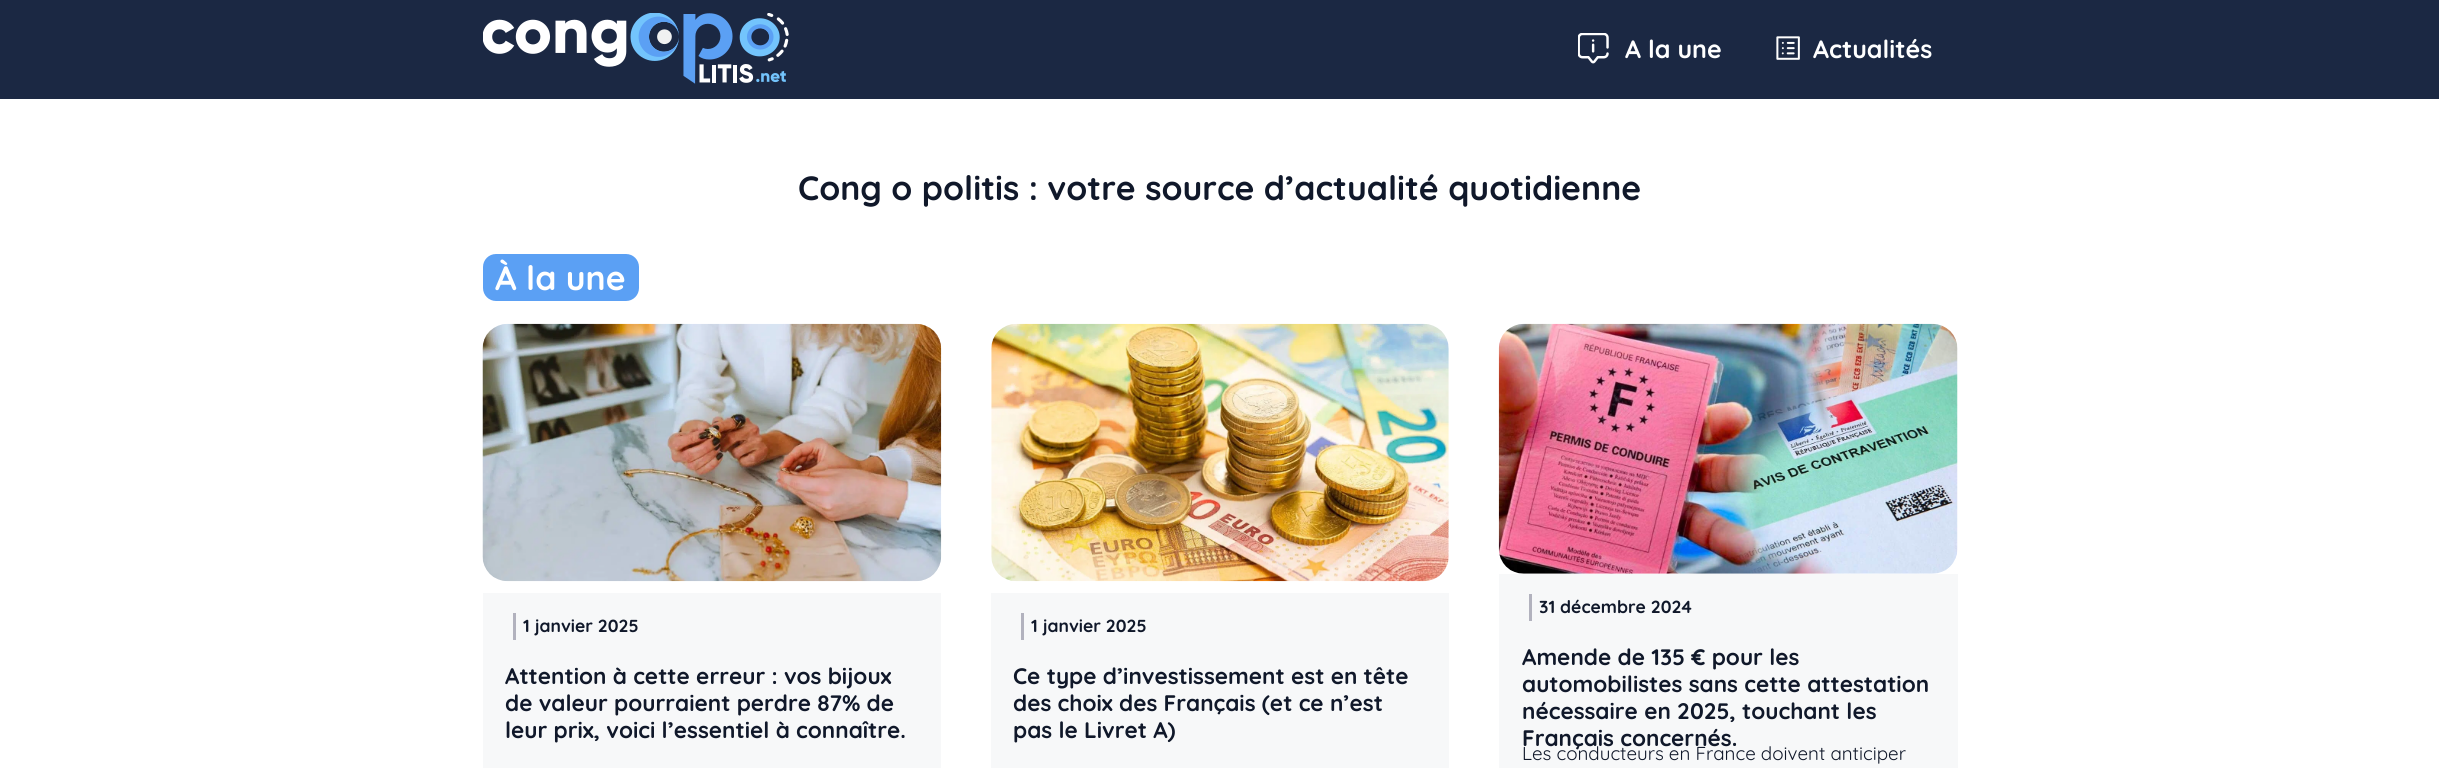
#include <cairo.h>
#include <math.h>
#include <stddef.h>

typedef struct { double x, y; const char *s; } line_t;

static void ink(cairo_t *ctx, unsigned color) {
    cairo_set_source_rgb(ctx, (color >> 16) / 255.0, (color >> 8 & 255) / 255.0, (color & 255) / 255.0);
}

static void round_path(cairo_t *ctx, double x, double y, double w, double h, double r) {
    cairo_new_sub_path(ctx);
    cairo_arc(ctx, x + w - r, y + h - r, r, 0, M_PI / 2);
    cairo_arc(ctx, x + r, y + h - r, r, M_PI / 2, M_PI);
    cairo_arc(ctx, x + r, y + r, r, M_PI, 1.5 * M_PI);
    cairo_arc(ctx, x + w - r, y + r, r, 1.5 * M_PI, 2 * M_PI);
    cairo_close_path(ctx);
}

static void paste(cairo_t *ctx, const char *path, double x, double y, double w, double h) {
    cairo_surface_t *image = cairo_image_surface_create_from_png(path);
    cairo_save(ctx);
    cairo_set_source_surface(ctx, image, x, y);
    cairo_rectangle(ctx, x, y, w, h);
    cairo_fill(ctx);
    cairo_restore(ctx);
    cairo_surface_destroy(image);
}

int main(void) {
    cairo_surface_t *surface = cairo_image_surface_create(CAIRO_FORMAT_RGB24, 2439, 768);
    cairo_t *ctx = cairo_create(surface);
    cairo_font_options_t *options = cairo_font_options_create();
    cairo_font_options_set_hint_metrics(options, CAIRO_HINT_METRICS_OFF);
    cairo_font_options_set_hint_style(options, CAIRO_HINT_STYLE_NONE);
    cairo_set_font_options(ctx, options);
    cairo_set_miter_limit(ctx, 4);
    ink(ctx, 0xFFFFFF);
    cairo_paint(ctx);
    ink(ctx, 0x1B2843);
    cairo_rectangle(ctx, 0, 0, 2439, 99);
    cairo_fill(ctx);
    paste(ctx, "media/1.png", 483, 13, 306, 71);
    paste(ctx, "media/2.png", 1578, 33, 31, 31);
    cairo_select_font_face(ctx, "Quicksand", CAIRO_FONT_SLANT_NORMAL, CAIRO_FONT_WEIGHT_BOLD);
    cairo_set_font_size(ctx, 25);
    ink(ctx, 0xFFFFFF);
    cairo_move_to(ctx, 1625, 58);
    cairo_show_text(ctx, "A la une");
    paste(ctx, "media/3.png", 1776, 36, 24, 24);
    cairo_move_to(ctx, 1813, 58);
    cairo_show_text(ctx, "Actualités");
    cairo_set_font_size(ctx, 33.75);
    ink(ctx, 0x10182A);
    cairo_move_to(ctx, 798, 200);
    cairo_show_text(ctx, "Cong o politis : votre source d’actualité quotidienne");
    ink(ctx, 0x5BA0F4);
    round_path(ctx, 483, 254, 156, 47, 13);
    cairo_fill(ctx);
    ink(ctx, 0xFFFFFF);
    cairo_move_to(ctx, 495, 290);
    cairo_show_text(ctx, "À la une");
    paste(ctx, "media/4.png", 482, 323, 460, 259);
    ink(ctx, 0xF7F8F9);
    cairo_rectangle(ctx, 483, 593, 458, 175);
    cairo_fill(ctx);
    ink(ctx, 0xB2B2BE);
    cairo_rectangle(ctx, 513, 613, 3, 27);
    cairo_fill(ctx);
    cairo_set_font_size(ctx, 17.5);
    ink(ctx, 0x10182A);
    cairo_move_to(ctx, 523, 632);
    cairo_show_text(ctx, "1 janvier 2025");
    cairo_set_font_size(ctx, 22.5);
    {
        static const line_t items[] = {
            {505, 684, "Attention à cette erreur : vos bijoux"},
            {505, 711, "de valeur pourraient perdre 87% de"},
            {505, 738, "leur prix, voici l’essentiel à connaître."},
        };
        for (size_t i = 0; i < sizeof items / sizeof *items; i++) {
            cairo_move_to(ctx, items[i].x, items[i].y);
            cairo_show_text(ctx, items[i].s);
        }
    }
    paste(ctx, "media/5.png", 991, 323, 458, 259);
    ink(ctx, 0xF7F8F9);
    cairo_rectangle(ctx, 991, 593, 458, 175);
    cairo_fill(ctx);
    ink(ctx, 0xB2B2BE);
    cairo_rectangle(ctx, 1021, 613, 3, 27);
    cairo_fill(ctx);
    cairo_set_font_size(ctx, 17.5);
    ink(ctx, 0x10182A);
    cairo_move_to(ctx, 1031, 632);
    cairo_show_text(ctx, "1 janvier 2025");
    cairo_set_font_size(ctx, 22.5);
    {
        static const line_t items[] = {
            {1013, 684, "Ce type d’investissement est en tête"},
            {1013, 711, "des choix des Français (et ce n’est"},
            {1013, 738, "pas le Livret A)"},
        };
        for (size_t i = 0; i < sizeof items / sizeof *items; i++) {
            cairo_move_to(ctx, items[i].x, items[i].y);
            cairo_show_text(ctx, items[i].s);
        }
    }
    paste(ctx, "media/6.png", 1498, 323, 460, 251);
    ink(ctx, 0xF7F8F9);
    cairo_rectangle(ctx, 1499, 574, 459, 194);
    cairo_fill(ctx);
    ink(ctx, 0xB2B2BE);
    cairo_rectangle(ctx, 1529, 594, 3, 27);
    cairo_fill(ctx);
    cairo_set_font_size(ctx, 17.5);
    ink(ctx, 0x10182A);
    cairo_move_to(ctx, 1539, 613);
    cairo_show_text(ctx, "31 décembre 2024");
    cairo_set_font_size(ctx, 22.5);
    {
        static const line_t items[] = {
            {1522, 665, "Amende de 135 € pour les"},
            {1522, 692, "automobilistes sans cette attestation"},
            {1522, 719, "nécessaire en 2025, touchant les"},
            {1522, 746, "Français concernés."},
        };
        for (size_t i = 0; i < sizeof items / sizeof *items; i++) {
            cairo_move_to(ctx, items[i].x, items[i].y);
            cairo_show_text(ctx, items[i].s);
        }
    }
    cairo_select_font_face(ctx, "Quicksand", CAIRO_FONT_SLANT_NORMAL, CAIRO_FONT_WEIGHT_NORMAL);
    cairo_set_font_size(ctx, 18.75);
    cairo_move_to(ctx, 1522, 760);
    cairo_show_text(ctx, "Les conducteurs en France doivent anticiper");
    cairo_surface_write_to_png(surface, "image.png");
    cairo_font_options_destroy(options);
    cairo_destroy(ctx);
    cairo_surface_destroy(surface);
    return 0;
}
